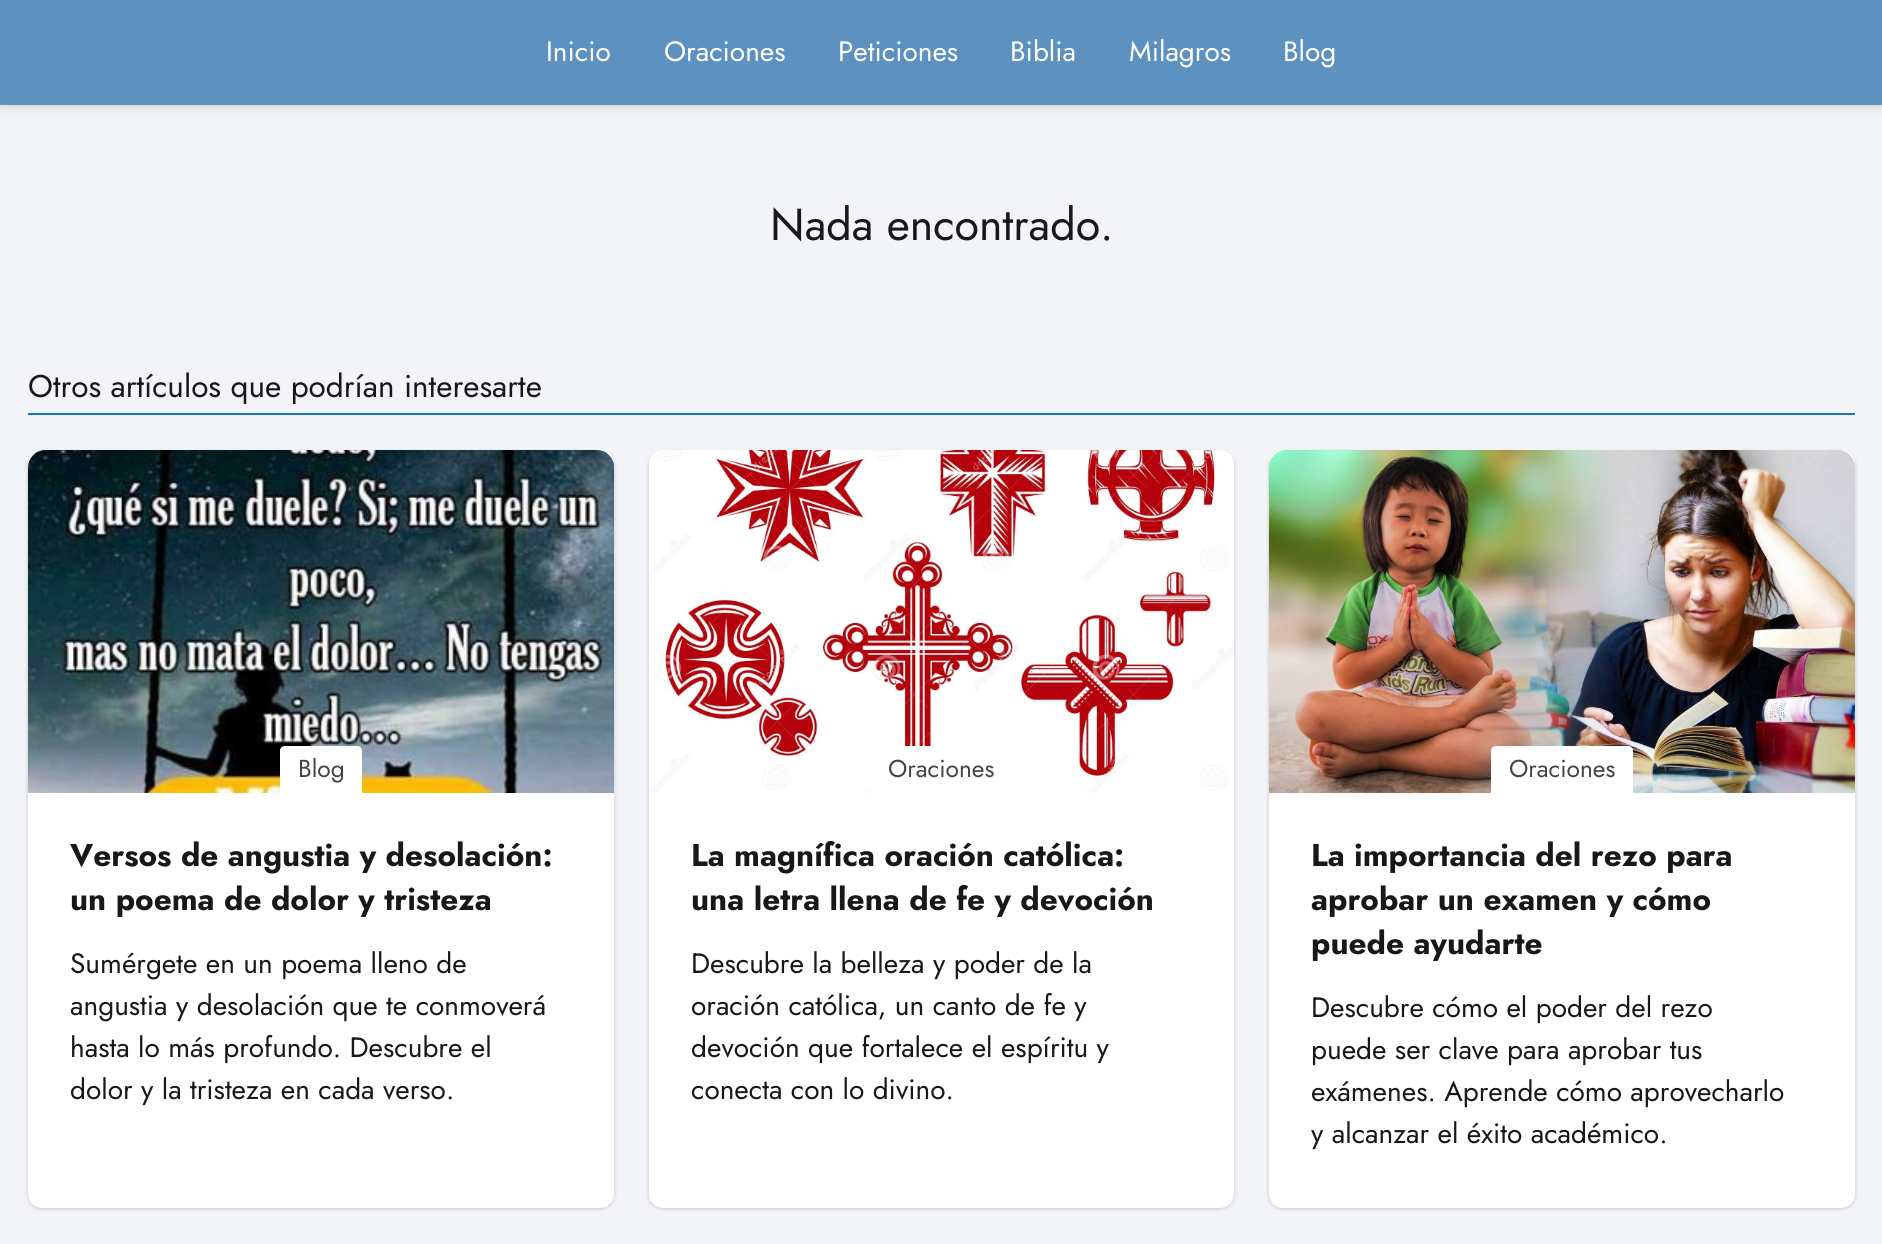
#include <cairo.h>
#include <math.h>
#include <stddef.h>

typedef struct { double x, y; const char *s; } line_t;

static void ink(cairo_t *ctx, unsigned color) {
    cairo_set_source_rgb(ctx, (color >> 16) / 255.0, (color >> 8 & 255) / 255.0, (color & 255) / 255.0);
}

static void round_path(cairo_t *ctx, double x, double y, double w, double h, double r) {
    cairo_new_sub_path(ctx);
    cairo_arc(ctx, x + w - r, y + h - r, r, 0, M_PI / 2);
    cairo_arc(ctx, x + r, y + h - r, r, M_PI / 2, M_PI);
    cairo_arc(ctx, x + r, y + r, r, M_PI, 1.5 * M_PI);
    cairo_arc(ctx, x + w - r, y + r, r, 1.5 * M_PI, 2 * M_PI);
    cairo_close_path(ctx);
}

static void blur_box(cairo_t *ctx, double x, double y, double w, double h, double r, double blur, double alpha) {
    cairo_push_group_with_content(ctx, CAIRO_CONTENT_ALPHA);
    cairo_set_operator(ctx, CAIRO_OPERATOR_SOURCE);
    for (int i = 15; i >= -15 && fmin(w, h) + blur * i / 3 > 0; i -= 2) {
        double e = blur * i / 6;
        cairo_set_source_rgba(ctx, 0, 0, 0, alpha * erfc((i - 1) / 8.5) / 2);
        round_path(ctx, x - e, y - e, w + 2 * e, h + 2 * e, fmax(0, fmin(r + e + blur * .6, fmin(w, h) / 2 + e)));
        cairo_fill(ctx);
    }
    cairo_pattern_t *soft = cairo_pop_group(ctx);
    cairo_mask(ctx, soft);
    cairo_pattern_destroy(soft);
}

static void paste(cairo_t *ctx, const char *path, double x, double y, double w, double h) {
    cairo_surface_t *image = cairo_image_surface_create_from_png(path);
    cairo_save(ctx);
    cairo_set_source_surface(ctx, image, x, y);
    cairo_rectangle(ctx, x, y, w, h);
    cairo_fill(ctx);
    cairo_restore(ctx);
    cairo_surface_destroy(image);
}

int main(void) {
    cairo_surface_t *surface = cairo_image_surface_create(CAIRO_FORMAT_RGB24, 1882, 1244);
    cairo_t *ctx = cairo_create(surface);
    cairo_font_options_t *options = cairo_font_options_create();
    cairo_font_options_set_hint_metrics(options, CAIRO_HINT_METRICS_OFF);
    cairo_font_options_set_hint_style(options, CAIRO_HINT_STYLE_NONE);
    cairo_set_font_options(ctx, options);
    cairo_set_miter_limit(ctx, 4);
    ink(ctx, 0xF3F4F8);
    cairo_paint(ctx);
    ink(ctx, 0x000000);
    blur_box(ctx, 0, 4, 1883, 105, 0, 3.5, 0.1);
    ink(ctx, 0x5D91BF);
    cairo_rectangle(ctx, 0, 0, 1882, 105);
    cairo_fill(ctx);
    cairo_select_font_face(ctx, "Jost", CAIRO_FONT_SLANT_NORMAL, CAIRO_FONT_WEIGHT_NORMAL);
    cairo_set_font_size(ctx, 28);
    ink(ctx, 0xFFFFFF);
    {
        static const line_t items[] = {
            {546, 61, "Inicio"},
            {664, 61, "Oraciones"},
            {838, 61, "Peticiones"},
            {1010, 61, "Biblia"},
            {1129, 61, "Milagros"},
            {1283, 61, "Blog"},
        };
        for (size_t i = 0; i < sizeof items / sizeof *items; i++) {
            cairo_move_to(ctx, items[i].x, items[i].y);
            cairo_show_text(ctx, items[i].s);
        }
    }
    cairo_set_font_size(ctx, 44.75);
    ink(ctx, 0x181818);
    cairo_move_to(ctx, 770, 240);
    cairo_show_text(ctx, "Nada encontrado.");
    ink(ctx, 0x1E73BE);
    cairo_rectangle(ctx, 28, 413, 1827, 2);
    cairo_fill(ctx);
    cairo_set_font_size(ctx, 31.5);
    ink(ctx, 0x181818);
    cairo_move_to(ctx, 28, 397);
    cairo_show_text(ctx, "Otros artículos que podrían interesarte");
    ink(ctx, 0x000000);
    blur_box(ctx, 28, 452, 586, 757, 14, 2, 0.2);
    ink(ctx, 0xFFFFFF);
    round_path(ctx, 28, 450, 586, 758, 14);
    cairo_fill(ctx);
    paste(ctx, "media/1.png", 28, 450, 586, 343);
    cairo_new_path(ctx);
    cairo_move_to(ctx, 285, 746);
    cairo_line_to(ctx, 357, 746);
    cairo_curve_to(ctx, 360, 746, 362, 748, 362, 751);
    cairo_line_to(ctx, 362, 793);
    cairo_line_to(ctx, 280, 793);
    cairo_line_to(ctx, 280, 751);
    cairo_curve_to(ctx, 280, 748, 282, 746, 285, 746);
    cairo_close_path(ctx);
    cairo_fill(ctx);
    cairo_set_font_size(ctx, 24.5);
    ink(ctx, 0x444444);
    cairo_move_to(ctx, 298, 777);
    cairo_show_text(ctx, "Blog");
    cairo_select_font_face(ctx, "Jost", CAIRO_FONT_SLANT_NORMAL, CAIRO_FONT_WEIGHT_BOLD);
    cairo_set_font_size(ctx, 31.5);
    ink(ctx, 0x181818);
    cairo_move_to(ctx, 70, 866);
    cairo_show_text(ctx, "Versos de angustia y desolación:");
    cairo_move_to(ctx, 70, 910);
    cairo_show_text(ctx, "un poema de dolor y tristeza");
    cairo_select_font_face(ctx, "Jost", CAIRO_FONT_SLANT_NORMAL, CAIRO_FONT_WEIGHT_NORMAL);
    cairo_set_font_size(ctx, 28);
    {
        static const line_t items[] = {
            {70, 973, "Sumérgete en un poema lleno de"},
            {70, 1015, "angustia y desolación que te conmoverá"},
            {70, 1057, "hasta lo más profundo. Descubre el"},
            {70, 1099, "dolor y la tristeza en cada verso."},
        };
        for (size_t i = 0; i < sizeof items / sizeof *items; i++) {
            cairo_move_to(ctx, items[i].x, items[i].y);
            cairo_show_text(ctx, items[i].s);
        }
    }
    ink(ctx, 0x000000);
    blur_box(ctx, 649, 452, 585, 757, 14, 2, 0.2);
    ink(ctx, 0xFFFFFF);
    round_path(ctx, 649, 450, 585, 758, 14);
    cairo_fill(ctx);
    paste(ctx, "media/2.png", 650, 450, 583, 343);
    cairo_new_path(ctx);
    cairo_move_to(ctx, 875, 746);
    cairo_line_to(ctx, 1008, 746);
    cairo_curve_to(ctx, 1011, 746, 1013, 748, 1013, 751);
    cairo_line_to(ctx, 1013, 793);
    cairo_line_to(ctx, 870, 793);
    cairo_line_to(ctx, 870, 751);
    cairo_curve_to(ctx, 870, 748, 872, 746, 875, 746);
    cairo_close_path(ctx);
    cairo_fill(ctx);
    cairo_set_font_size(ctx, 24.5);
    ink(ctx, 0x444444);
    cairo_move_to(ctx, 888, 777);
    cairo_show_text(ctx, "Oraciones");
    cairo_select_font_face(ctx, "Jost", CAIRO_FONT_SLANT_NORMAL, CAIRO_FONT_WEIGHT_BOLD);
    cairo_set_font_size(ctx, 31.5);
    ink(ctx, 0x181818);
    cairo_move_to(ctx, 691, 866);
    cairo_show_text(ctx, "La magnífica oración católica:");
    cairo_move_to(ctx, 691, 910);
    cairo_show_text(ctx, "una letra llena de fe y devoción");
    cairo_select_font_face(ctx, "Jost", CAIRO_FONT_SLANT_NORMAL, CAIRO_FONT_WEIGHT_NORMAL);
    cairo_set_font_size(ctx, 28);
    {
        static const line_t items[] = {
            {691, 973, "Descubre la belleza y poder de la"},
            {691, 1015, "oración católica, un canto de fe y"},
            {691, 1057, "devoción que fortalece el espíritu y"},
            {691, 1099, "conecta con lo divino."},
        };
        for (size_t i = 0; i < sizeof items / sizeof *items; i++) {
            cairo_move_to(ctx, items[i].x, items[i].y);
            cairo_show_text(ctx, items[i].s);
        }
    }
    ink(ctx, 0x000000);
    blur_box(ctx, 1269, 452, 586, 757, 14, 2, 0.2);
    ink(ctx, 0xFFFFFF);
    round_path(ctx, 1269, 450, 586, 758, 14);
    cairo_fill(ctx);
    paste(ctx, "media/3.png", 1269, 450, 586, 343);
    cairo_new_path(ctx);
    cairo_move_to(ctx, 1496, 746);
    cairo_line_to(ctx, 1628, 746);
    cairo_curve_to(ctx, 1631, 746, 1633, 748, 1633, 751);
    cairo_line_to(ctx, 1633, 793);
    cairo_line_to(ctx, 1491, 793);
    cairo_line_to(ctx, 1491, 751);
    cairo_curve_to(ctx, 1491, 748, 1493, 746, 1496, 746);
    cairo_close_path(ctx);
    cairo_fill(ctx);
    cairo_set_font_size(ctx, 24.5);
    ink(ctx, 0x444444);
    cairo_move_to(ctx, 1509, 777);
    cairo_show_text(ctx, "Oraciones");
    cairo_select_font_face(ctx, "Jost", CAIRO_FONT_SLANT_NORMAL, CAIRO_FONT_WEIGHT_BOLD);
    cairo_set_font_size(ctx, 31.5);
    ink(ctx, 0x181818);
    {
        static const line_t items[] = {
            {1311, 866, "La importancia del rezo para"},
            {1311, 910, "aprobar un examen y cómo"},
            {1311, 954, "puede ayudarte"},
        };
        for (size_t i = 0; i < sizeof items / sizeof *items; i++) {
            cairo_move_to(ctx, items[i].x, items[i].y);
            cairo_show_text(ctx, items[i].s);
        }
    }
    cairo_select_font_face(ctx, "Jost", CAIRO_FONT_SLANT_NORMAL, CAIRO_FONT_WEIGHT_NORMAL);
    cairo_set_font_size(ctx, 28);
    {
        static const line_t items[] = {
            {1311, 1017, "Descubre cómo el poder del rezo"},
            {1311, 1059, "puede ser clave para aprobar tus"},
            {1311, 1101, "exámenes. Aprende cómo aprovecharlo"},
            {1311, 1143, "y alcanzar el éxito académico."},
        };
        for (size_t i = 0; i < sizeof items / sizeof *items; i++) {
            cairo_move_to(ctx, items[i].x, items[i].y);
            cairo_show_text(ctx, items[i].s);
        }
    }
    cairo_surface_write_to_png(surface, "image.png");
    cairo_font_options_destroy(options);
    cairo_destroy(ctx);
    cairo_surface_destroy(surface);
    return 0;
}
